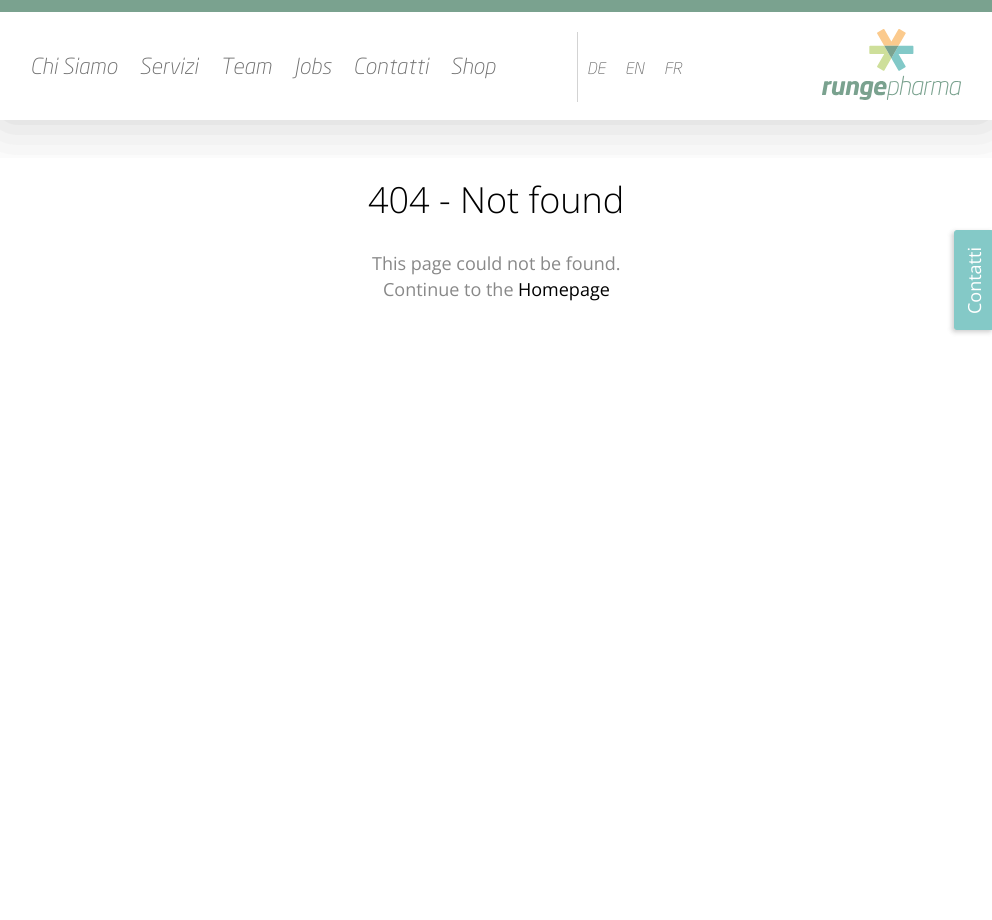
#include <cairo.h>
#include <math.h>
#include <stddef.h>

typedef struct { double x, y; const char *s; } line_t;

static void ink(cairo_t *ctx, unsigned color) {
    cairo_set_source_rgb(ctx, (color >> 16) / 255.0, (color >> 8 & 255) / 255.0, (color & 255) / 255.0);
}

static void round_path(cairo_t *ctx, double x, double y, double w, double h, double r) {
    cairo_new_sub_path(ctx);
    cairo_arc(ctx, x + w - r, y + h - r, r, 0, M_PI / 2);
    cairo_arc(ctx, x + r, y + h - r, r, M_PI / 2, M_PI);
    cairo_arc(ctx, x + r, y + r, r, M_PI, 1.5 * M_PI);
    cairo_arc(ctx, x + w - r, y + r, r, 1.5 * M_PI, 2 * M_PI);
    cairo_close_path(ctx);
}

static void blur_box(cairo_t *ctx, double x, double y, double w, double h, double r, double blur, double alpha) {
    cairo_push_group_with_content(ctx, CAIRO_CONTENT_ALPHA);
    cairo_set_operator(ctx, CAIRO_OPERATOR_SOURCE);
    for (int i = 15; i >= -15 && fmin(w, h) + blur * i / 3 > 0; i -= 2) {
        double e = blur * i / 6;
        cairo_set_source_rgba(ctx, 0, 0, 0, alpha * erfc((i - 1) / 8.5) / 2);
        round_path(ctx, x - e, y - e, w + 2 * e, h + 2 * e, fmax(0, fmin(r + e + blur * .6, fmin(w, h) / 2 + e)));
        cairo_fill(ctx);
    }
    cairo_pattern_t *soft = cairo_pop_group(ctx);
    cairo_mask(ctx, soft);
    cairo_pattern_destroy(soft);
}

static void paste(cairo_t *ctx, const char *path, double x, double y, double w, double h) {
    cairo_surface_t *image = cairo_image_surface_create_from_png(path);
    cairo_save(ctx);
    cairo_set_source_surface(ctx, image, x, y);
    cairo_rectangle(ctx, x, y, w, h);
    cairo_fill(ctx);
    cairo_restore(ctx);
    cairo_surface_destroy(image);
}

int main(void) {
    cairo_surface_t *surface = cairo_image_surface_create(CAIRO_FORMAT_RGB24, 992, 920);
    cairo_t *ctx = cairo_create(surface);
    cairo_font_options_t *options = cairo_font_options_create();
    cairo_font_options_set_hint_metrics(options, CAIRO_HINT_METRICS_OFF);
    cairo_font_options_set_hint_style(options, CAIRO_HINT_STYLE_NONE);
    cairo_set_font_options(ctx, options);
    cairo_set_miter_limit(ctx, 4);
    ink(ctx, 0xFFFFFF);
    cairo_paint(ctx);
    cairo_save(ctx);
    cairo_rectangle(ctx, 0, 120, 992, 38);
    cairo_clip(ctx);
    ink(ctx, 0x000000);
    blur_box(ctx, 0, 0, 992, 120, 0, 30, 0.2);
    cairo_restore(ctx);
    ink(ctx, 0x7AA28F);
    cairo_rectangle(ctx, 0, 0, 992, 12);
    cairo_fill(ctx);
    cairo_select_font_face(ctx, "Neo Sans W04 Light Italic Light", CAIRO_FONT_SLANT_NORMAL, CAIRO_FONT_WEIGHT_NORMAL);
    cairo_set_font_size(ctx, 22);
    ink(ctx, 0x6F6F6F);
    {
        static const line_t items[] = {
            {30, 74, "Chi Siamo"},
            {139, 74, "Servizi"},
            {220, 74, "Team"},
            {294, 74, "Jobs"},
            {353, 74, "Contatti"},
            {450, 74, "Shop"},
        };
        for (size_t i = 0; i < sizeof items / sizeof *items; i++) {
            cairo_move_to(ctx, items[i].x, items[i].y);
            cairo_show_text(ctx, items[i].s);
        }
    }
    ink(ctx, 0xD3D3D3);
    cairo_rectangle(ctx, 577, 32, 1, 70);
    cairo_fill(ctx);
    cairo_set_font_size(ctx, 16);
    ink(ctx, 0x6F6F6F);
    {
        static const line_t items[] = {
            {587, 74, "DE"},
            {625, 74, "EN"},
            {664, 74, "FR"},
        };
        for (size_t i = 0; i < sizeof items / sizeof *items; i++) {
            cairo_move_to(ctx, items[i].x, items[i].y);
            cairo_show_text(ctx, items[i].s);
        }
    }
    paste(ctx, "media/1.png", 822, 29, 140, 71);
    cairo_select_font_face(ctx, "Open Sans Light", CAIRO_FONT_SLANT_NORMAL, CAIRO_FONT_WEIGHT_NORMAL);
    cairo_set_font_size(ctx, 36);
    ink(ctx, 0x000000);
    cairo_move_to(ctx, 368, 213);
    cairo_show_text(ctx, "404 - Not found");
    cairo_select_font_face(ctx, "Open Sans", CAIRO_FONT_SLANT_NORMAL, CAIRO_FONT_WEIGHT_NORMAL);
    cairo_set_font_size(ctx, 18);
    ink(ctx, 0x888888);
    cairo_move_to(ctx, 372, 270);
    cairo_show_text(ctx, "This page could not be found.");
    cairo_move_to(ctx, 383, 296);
    cairo_show_text(ctx, "Continue to the");
    ink(ctx, 0x000000);
    cairo_move_to(ctx, 518, 296);
    cairo_show_text(ctx, "Homepage");
    ink(ctx, 0x000000);
    blur_box(ctx, 952, 232, 40, 100, 3, 2.5, 0.2);
    ink(ctx, 0x84C9C7);
    round_path(ctx, 954.5, 230.5, 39, 99, 2.5);
    cairo_fill_preserve(ctx);
    cairo_set_line_width(ctx, 1);
    cairo_stroke(ctx);
    ink(ctx, 0xFFFFFF);
    cairo_save(ctx);
    cairo_translate(ctx, 981, 314);
    cairo_rotate(ctx, -90 * M_PI / 180);
    cairo_move_to(ctx, 0, 0);
    cairo_show_text(ctx, "Contatti");
    cairo_restore(ctx);
    cairo_surface_write_to_png(surface, "image.png");
    cairo_font_options_destroy(options);
    cairo_destroy(ctx);
    cairo_surface_destroy(surface);
    return 0;
}
